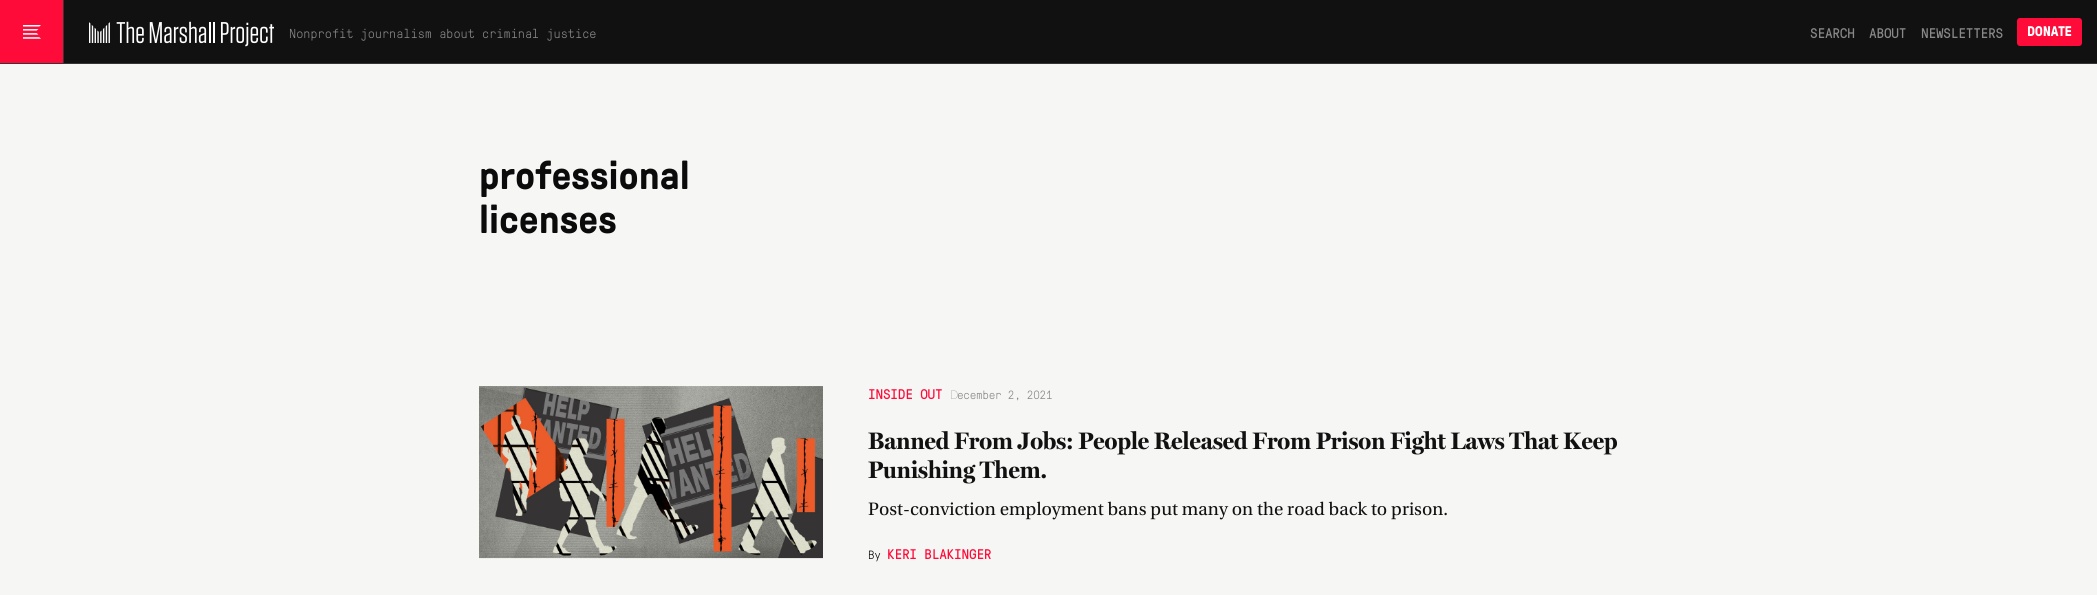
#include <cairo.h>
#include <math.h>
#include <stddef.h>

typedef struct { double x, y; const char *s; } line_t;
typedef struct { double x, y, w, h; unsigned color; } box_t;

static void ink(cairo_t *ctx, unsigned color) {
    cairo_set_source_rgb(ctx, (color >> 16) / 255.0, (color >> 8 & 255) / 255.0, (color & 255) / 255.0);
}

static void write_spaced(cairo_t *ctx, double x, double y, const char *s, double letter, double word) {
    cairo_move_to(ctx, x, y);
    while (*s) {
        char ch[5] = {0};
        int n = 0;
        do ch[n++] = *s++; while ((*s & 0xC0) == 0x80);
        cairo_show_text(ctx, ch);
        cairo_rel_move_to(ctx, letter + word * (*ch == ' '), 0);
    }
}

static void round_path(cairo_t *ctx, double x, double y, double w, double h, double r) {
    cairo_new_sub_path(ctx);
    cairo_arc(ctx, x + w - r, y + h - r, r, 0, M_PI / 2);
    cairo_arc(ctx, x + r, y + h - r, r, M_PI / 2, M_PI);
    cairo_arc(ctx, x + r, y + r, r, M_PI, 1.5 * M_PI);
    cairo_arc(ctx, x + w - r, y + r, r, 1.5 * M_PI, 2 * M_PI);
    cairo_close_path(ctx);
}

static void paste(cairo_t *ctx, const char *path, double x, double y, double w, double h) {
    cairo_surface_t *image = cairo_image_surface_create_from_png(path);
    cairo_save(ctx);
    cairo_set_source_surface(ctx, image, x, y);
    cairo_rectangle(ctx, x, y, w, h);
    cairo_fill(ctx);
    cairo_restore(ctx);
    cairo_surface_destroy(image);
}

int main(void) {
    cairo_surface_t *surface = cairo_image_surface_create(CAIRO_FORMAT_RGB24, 2097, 595);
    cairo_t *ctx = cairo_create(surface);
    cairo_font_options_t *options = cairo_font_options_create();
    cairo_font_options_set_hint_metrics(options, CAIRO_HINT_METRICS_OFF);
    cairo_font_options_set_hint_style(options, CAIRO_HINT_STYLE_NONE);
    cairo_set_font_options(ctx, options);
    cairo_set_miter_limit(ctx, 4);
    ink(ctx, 0xF6F6F4);
    cairo_paint(ctx);
    {
        static const box_t items[] = {
            {64, 0, 2033, 63, 0x111111},
            {64, 63, 2033, 1, 0x353535},
            {0, 0, 63, 63, 0xFF0B3A},
            {63, 0, 1, 64, 0x353535},
            {0, 63, 63, 1, 0x353535},
        };
        for (size_t i = 0; i < sizeof items / sizeof *items; i++) {
            ink(ctx, items[i].color);
            cairo_rectangle(ctx, items[i].x, items[i].y, items[i].w, items[i].h);
            cairo_fill(ctx);
        }
    }
    paste(ctx, "media/1.png", 23, 25, 18, 14);
    paste(ctx, "media/2.png", 89, 21, 185, 26);
    cairo_select_font_face(ctx, "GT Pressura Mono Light", CAIRO_FONT_SLANT_NORMAL, CAIRO_FONT_WEIGHT_NORMAL);
    cairo_set_font_size(ctx, 13);
    ink(ctx, 0x888888);
    cairo_move_to(ctx, 289, 38);
    cairo_show_text(ctx, "Nonprofit journalism about criminal justice");
    cairo_select_font_face(ctx, "GT Pressura Mono", CAIRO_FONT_SLANT_NORMAL, CAIRO_FONT_WEIGHT_NORMAL);
    cairo_set_font_size(ctx, 14);
    {
        static const line_t items[] = {
            {1810, 38, "SEARCH"},
            {1869, 38, "ABOUT"},
            {1921, 38, "NEWSLETTERS"},
        };
        for (size_t i = 0; i < sizeof items / sizeof *items; i++) {
            write_spaced(ctx, items[i].x, items[i].y, items[i].s, -0.25, 0);
        }
    }
    ink(ctx, 0xFF0B3A);
    round_path(ctx, 2017, 18, 65, 28, 3);
    cairo_fill(ctx);
    cairo_select_font_face(ctx, "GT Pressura", CAIRO_FONT_SLANT_NORMAL, CAIRO_FONT_WEIGHT_BOLD);
    ink(ctx, 0xFFFFFF);
    write_spaced(ctx, 2027, 36, "DONATE", -0.25, 0);
    cairo_set_font_size(ctx, 40);
    ink(ctx, 0x0B0B0B);
    cairo_move_to(ctx, 479, 189);
    cairo_show_text(ctx, "professional");
    cairo_move_to(ctx, 479, 233);
    cairo_show_text(ctx, "licenses");
    paste(ctx, "media/3.png", 479, 386, 344, 173);
    cairo_select_font_face(ctx, "GT Pressura Mono", CAIRO_FONT_SLANT_NORMAL, CAIRO_FONT_WEIGHT_NORMAL);
    cairo_set_font_size(ctx, 14);
    ink(ctx, 0xFF0B3A);
    write_spaced(ctx, 868, 399, "INSIDE OUT", -0.25, 0);
    cairo_select_font_face(ctx, "Noto Sans Thin", CAIRO_FONT_SLANT_NORMAL, CAIRO_FONT_WEIGHT_NORMAL);
    cairo_set_font_size(ctx, 12);
    ink(ctx, 0x888888);
    write_spaced(ctx, 950, 399, "D", -0.25, 0);
    cairo_select_font_face(ctx, "GT Pressura Mono Light", CAIRO_FONT_SLANT_NORMAL, CAIRO_FONT_WEIGHT_NORMAL);
    write_spaced(ctx, 957, 399, "ecember 2, 2021", -0.25, 0);
    cairo_select_font_face(ctx, "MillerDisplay", CAIRO_FONT_SLANT_NORMAL, CAIRO_FONT_WEIGHT_BOLD);
    cairo_set_font_size(ctx, 24);
    ink(ctx, 0x111111);
    cairo_move_to(ctx, 868, 449);
    cairo_show_text(ctx, "Banned From Jobs: People Released From Prison Fight Laws That Keep");
    cairo_move_to(ctx, 868, 478);
    cairo_show_text(ctx, "Punishing Them.");
    cairo_select_font_face(ctx, "Utopia", CAIRO_FONT_SLANT_NORMAL, CAIRO_FONT_WEIGHT_NORMAL);
    cairo_set_font_size(ctx, 19);
    cairo_move_to(ctx, 868, 515);
    cairo_show_text(ctx, "Post-conviction employment bans put many on the road back to prison.");
    cairo_select_font_face(ctx, "GT Pressura Mono Light", CAIRO_FONT_SLANT_NORMAL, CAIRO_FONT_WEIGHT_NORMAL);
    cairo_set_font_size(ctx, 12);
    write_spaced(ctx, 868, 559, "By", -0.25, 0);
    cairo_select_font_face(ctx, "GT Pressura Mono", CAIRO_FONT_SLANT_NORMAL, CAIRO_FONT_WEIGHT_NORMAL);
    cairo_set_font_size(ctx, 14);
    ink(ctx, 0xFF0B3A);
    write_spaced(ctx, 887, 559, "KERI BLAKINGER", -0.25, 0);
    cairo_surface_write_to_png(surface, "image.png");
    cairo_font_options_destroy(options);
    cairo_destroy(ctx);
    cairo_surface_destroy(surface);
    return 0;
}
